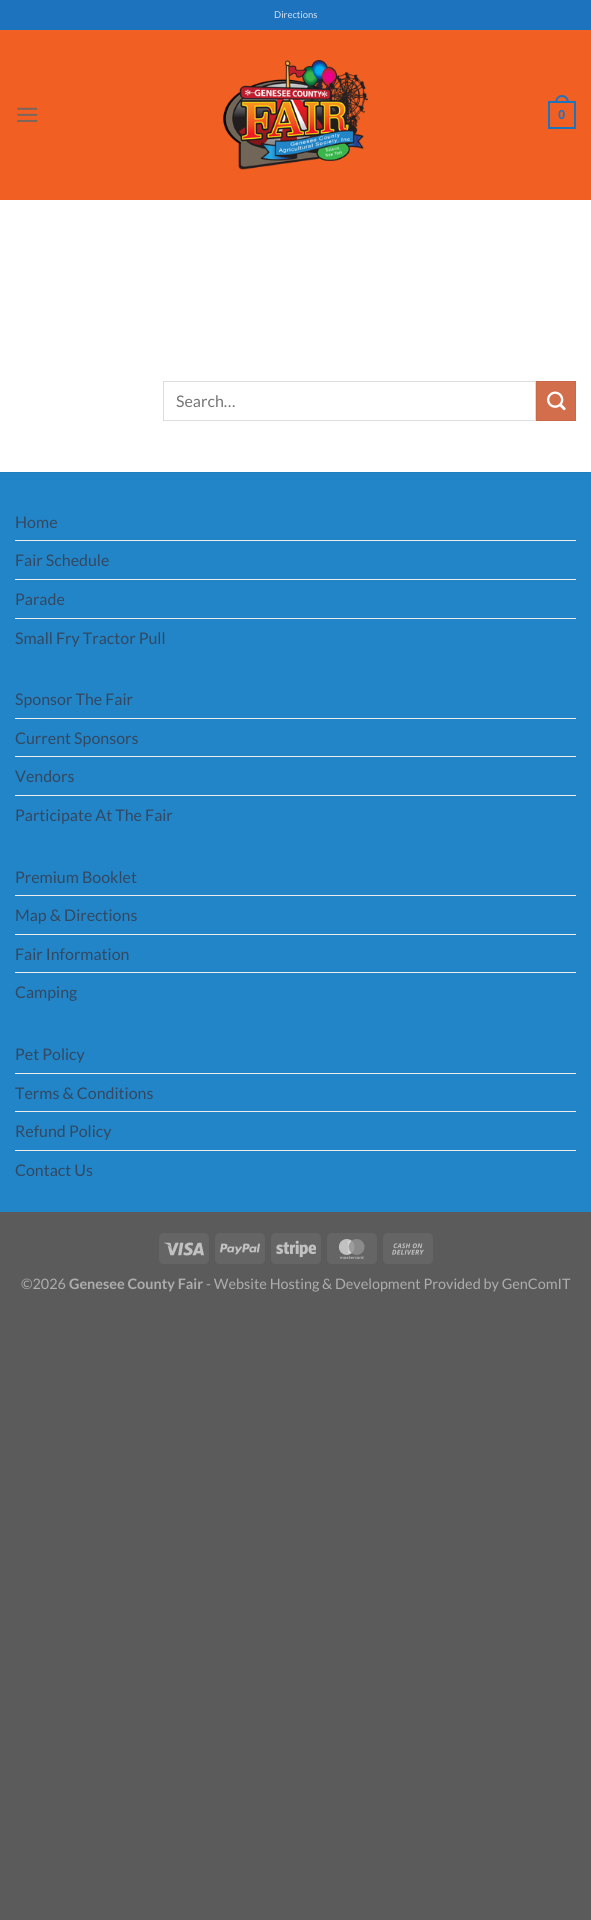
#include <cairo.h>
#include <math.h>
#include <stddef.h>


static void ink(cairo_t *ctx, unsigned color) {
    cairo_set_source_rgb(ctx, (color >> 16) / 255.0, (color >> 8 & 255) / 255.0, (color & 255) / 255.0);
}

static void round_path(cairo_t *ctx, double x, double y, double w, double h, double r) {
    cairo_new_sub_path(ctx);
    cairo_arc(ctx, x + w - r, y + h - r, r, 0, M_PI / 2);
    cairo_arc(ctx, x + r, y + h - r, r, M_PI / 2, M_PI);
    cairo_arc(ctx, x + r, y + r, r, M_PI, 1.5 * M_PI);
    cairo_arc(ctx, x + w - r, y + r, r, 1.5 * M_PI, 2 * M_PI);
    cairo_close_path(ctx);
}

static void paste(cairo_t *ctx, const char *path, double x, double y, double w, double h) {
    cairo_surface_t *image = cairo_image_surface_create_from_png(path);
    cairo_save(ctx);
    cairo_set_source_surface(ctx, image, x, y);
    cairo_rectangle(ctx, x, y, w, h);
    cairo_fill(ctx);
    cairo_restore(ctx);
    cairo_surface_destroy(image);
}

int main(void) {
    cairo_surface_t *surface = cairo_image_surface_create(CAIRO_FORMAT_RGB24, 591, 1920);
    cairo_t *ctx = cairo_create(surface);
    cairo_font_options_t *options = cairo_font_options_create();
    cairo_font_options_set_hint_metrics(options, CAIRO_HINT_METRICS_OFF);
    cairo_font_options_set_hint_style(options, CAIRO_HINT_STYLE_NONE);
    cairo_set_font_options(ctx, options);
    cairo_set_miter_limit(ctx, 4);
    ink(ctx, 0x5B5B5B);
    cairo_paint(ctx);
    ink(ctx, 0xFFFFFF);
    cairo_rectangle(ctx, 0, 200, 591, 272);
    cairo_fill(ctx);
    ink(ctx, 0x1E73BE);
    cairo_rectangle(ctx, 0, 0, 591, 30);
    cairo_fill(ctx);
    cairo_select_font_face(ctx, "Lato", CAIRO_FONT_SLANT_NORMAL, CAIRO_FONT_WEIGHT_NORMAL);
    cairo_set_font_size(ctx, 9.5);
    ink(ctx, 0xD2E3F2);
    cairo_move_to(ctx, 274, 18);
    cairo_show_text(ctx, "Directions");
    ink(ctx, 0xF15F22);
    cairo_rectangle(ctx, 0, 30, 591, 170);
    cairo_fill(ctx);
    paste(ctx, "media/1.png", 17, 107, 21, 15);
    paste(ctx, "media/2.png", 223, 60, 145, 110);
    cairo_rectangle(ctx, 549, 102, 26, 26);
    ink(ctx, 0x1E73BE);
    cairo_stroke(ctx);
    cairo_set_fill_rule(ctx, CAIRO_FILL_RULE_EVEN_ODD);
    cairo_new_path(ctx);
    cairo_move_to(ctx, 562, 95);
    cairo_curve_to(ctx, 566.5, 95, 569, 99, 569, 103);
    cairo_line_to(ctx, 555, 103);
    cairo_curve_to(ctx, 555, 99, 557.5, 95, 562, 95);
    cairo_close_path(ctx);
    cairo_move_to(ctx, 562, 97);
    cairo_curve_to(ctx, 565.5, 97, 567, 100, 567, 103);
    cairo_line_to(ctx, 557, 103);
    cairo_curve_to(ctx, 557, 100, 558.5, 97, 562, 97);
    cairo_close_path(ctx);
    cairo_fill(ctx);
    cairo_select_font_face(ctx, "Liberation Sans", CAIRO_FONT_SLANT_NORMAL, CAIRO_FONT_WEIGHT_BOLD);
    cairo_set_font_size(ctx, 13);
    cairo_move_to(ctx, 558, 119);
    cairo_show_text(ctx, "0");
    cairo_rectangle(ctx, 163.5, 381.5, 372, 39);
    ink(ctx, 0xDDDDDD);
    cairo_set_line_width(ctx, 1);
    cairo_stroke(ctx);
    cairo_select_font_face(ctx, "Lato", CAIRO_FONT_SLANT_NORMAL, CAIRO_FONT_WEIGHT_NORMAL);
    cairo_set_font_size(ctx, 16);
    ink(ctx, 0x757575);
    cairo_move_to(ctx, 176, 407);
    cairo_show_text(ctx, "Search…");
    ink(ctx, 0xD26E4B);
    cairo_rectangle(ctx, 536.5, 381.5, 39, 39);
    cairo_fill_preserve(ctx);
    ink(ctx, 0xC86947);
    cairo_stroke(ctx);
    paste(ctx, "media/3.png", 547, 391, 19, 20);
    ink(ctx, 0x2185C7);
    cairo_rectangle(ctx, 0, 473, 591, 739);
    cairo_fill(ctx);
    ink(ctx, 0x1F7EBD);
    cairo_rectangle(ctx, 0, 472, 591, 1);
    cairo_fill(ctx);
    ink(ctx, 0x334862);
    cairo_move_to(ctx, 15, 528);
    cairo_show_text(ctx, "Home");
    ink(ctx, 0xECECEC);
    cairo_rectangle(ctx, 15, 540, 561, 1);
    cairo_fill(ctx);
    ink(ctx, 0x334862);
    cairo_move_to(ctx, 15, 566);
    cairo_show_text(ctx, "Fair Schedule");
    ink(ctx, 0xECECEC);
    cairo_rectangle(ctx, 15, 579, 561, 1);
    cairo_fill(ctx);
    ink(ctx, 0x334862);
    cairo_move_to(ctx, 15, 605);
    cairo_show_text(ctx, "Parade");
    ink(ctx, 0xECECEC);
    cairo_rectangle(ctx, 15, 618, 561, 1);
    cairo_fill(ctx);
    ink(ctx, 0x334862);
    cairo_move_to(ctx, 15, 644);
    cairo_show_text(ctx, "Small Fry Tractor Pull");
    cairo_move_to(ctx, 15, 705);
    cairo_show_text(ctx, "Sponsor The Fair");
    ink(ctx, 0xECECEC);
    cairo_rectangle(ctx, 15, 718, 561, 1);
    cairo_fill(ctx);
    ink(ctx, 0x334862);
    cairo_move_to(ctx, 15, 744);
    cairo_show_text(ctx, "Current Sponsors");
    ink(ctx, 0xECECEC);
    cairo_rectangle(ctx, 15, 756, 561, 1);
    cairo_fill(ctx);
    ink(ctx, 0x334862);
    cairo_move_to(ctx, 15, 782);
    cairo_show_text(ctx, "Vendors");
    ink(ctx, 0xECECEC);
    cairo_rectangle(ctx, 15, 795, 561, 1);
    cairo_fill(ctx);
    ink(ctx, 0x334862);
    cairo_move_to(ctx, 15, 821);
    cairo_show_text(ctx, "Participate At The Fair");
    cairo_move_to(ctx, 15, 883);
    cairo_show_text(ctx, "Premium Booklet");
    ink(ctx, 0xECECEC);
    cairo_rectangle(ctx, 15, 895, 561, 1);
    cairo_fill(ctx);
    ink(ctx, 0x334862);
    cairo_move_to(ctx, 15, 921);
    cairo_show_text(ctx, "Map & Directions");
    ink(ctx, 0xECECEC);
    cairo_rectangle(ctx, 15, 934, 561, 1);
    cairo_fill(ctx);
    ink(ctx, 0x334862);
    cairo_move_to(ctx, 15, 960);
    cairo_show_text(ctx, "Fair Information");
    ink(ctx, 0xECECEC);
    cairo_rectangle(ctx, 15, 972, 561, 1);
    cairo_fill(ctx);
    ink(ctx, 0x334862);
    cairo_move_to(ctx, 15, 998);
    cairo_show_text(ctx, "Camping");
    cairo_move_to(ctx, 15, 1060);
    cairo_show_text(ctx, "Pet Policy");
    ink(ctx, 0xECECEC);
    cairo_rectangle(ctx, 15, 1073, 561, 1);
    cairo_fill(ctx);
    ink(ctx, 0x334862);
    cairo_move_to(ctx, 15, 1099);
    cairo_show_text(ctx, "Terms & Conditions");
    ink(ctx, 0xECECEC);
    cairo_rectangle(ctx, 15, 1111, 561, 1);
    cairo_fill(ctx);
    ink(ctx, 0x334862);
    cairo_move_to(ctx, 15, 1137);
    cairo_show_text(ctx, "Refund Policy");
    ink(ctx, 0xECECEC);
    cairo_rectangle(ctx, 15, 1150, 561, 1);
    cairo_fill(ctx);
    ink(ctx, 0x334862);
    cairo_move_to(ctx, 15, 1176);
    cairo_show_text(ctx, "Contact Us");
    ink(ctx, 0x656565);
    round_path(ctx, 159, 1233, 50, 31, 5);
    cairo_fill(ctx);
    paste(ctx, "media/4.png", 164, 1242, 40, 14);
    round_path(ctx, 215, 1233, 50, 31, 5);
    cairo_fill(ctx);
    paste(ctx, "media/5.png", 220, 1243, 40, 12);
    round_path(ctx, 271, 1233, 50, 31, 5);
    cairo_fill(ctx);
    paste(ctx, "media/6.png", 276, 1240, 40, 18);
    round_path(ctx, 327, 1233, 50, 31, 5);
    cairo_fill(ctx);
    paste(ctx, "media/7.png", 338, 1239, 27, 20);
    round_path(ctx, 383, 1233, 50, 31, 5);
    cairo_fill(ctx);
    paste(ctx, "media/8.png", 392, 1243, 32, 12);
    cairo_set_font_size(ctx, 14.4);
    ink(ctx, 0xADADAD);
    cairo_move_to(ctx, 21, 1289);
    cairo_show_text(ctx, "©2026");
    cairo_select_font_face(ctx, "Lato", CAIRO_FONT_SLANT_NORMAL, CAIRO_FONT_WEIGHT_BOLD);
    cairo_move_to(ctx, 69, 1289);
    cairo_show_text(ctx, "Genesee County Fair");
    cairo_select_font_face(ctx, "Lato", CAIRO_FONT_SLANT_NORMAL, CAIRO_FONT_WEIGHT_NORMAL);
    cairo_move_to(ctx, 206, 1289);
    cairo_show_text(ctx, "- Website Hosting & Development Provided by GenComIT");
    cairo_surface_write_to_png(surface, "image.png");
    cairo_font_options_destroy(options);
    cairo_destroy(ctx);
    cairo_surface_destroy(surface);
    return 0;
}
